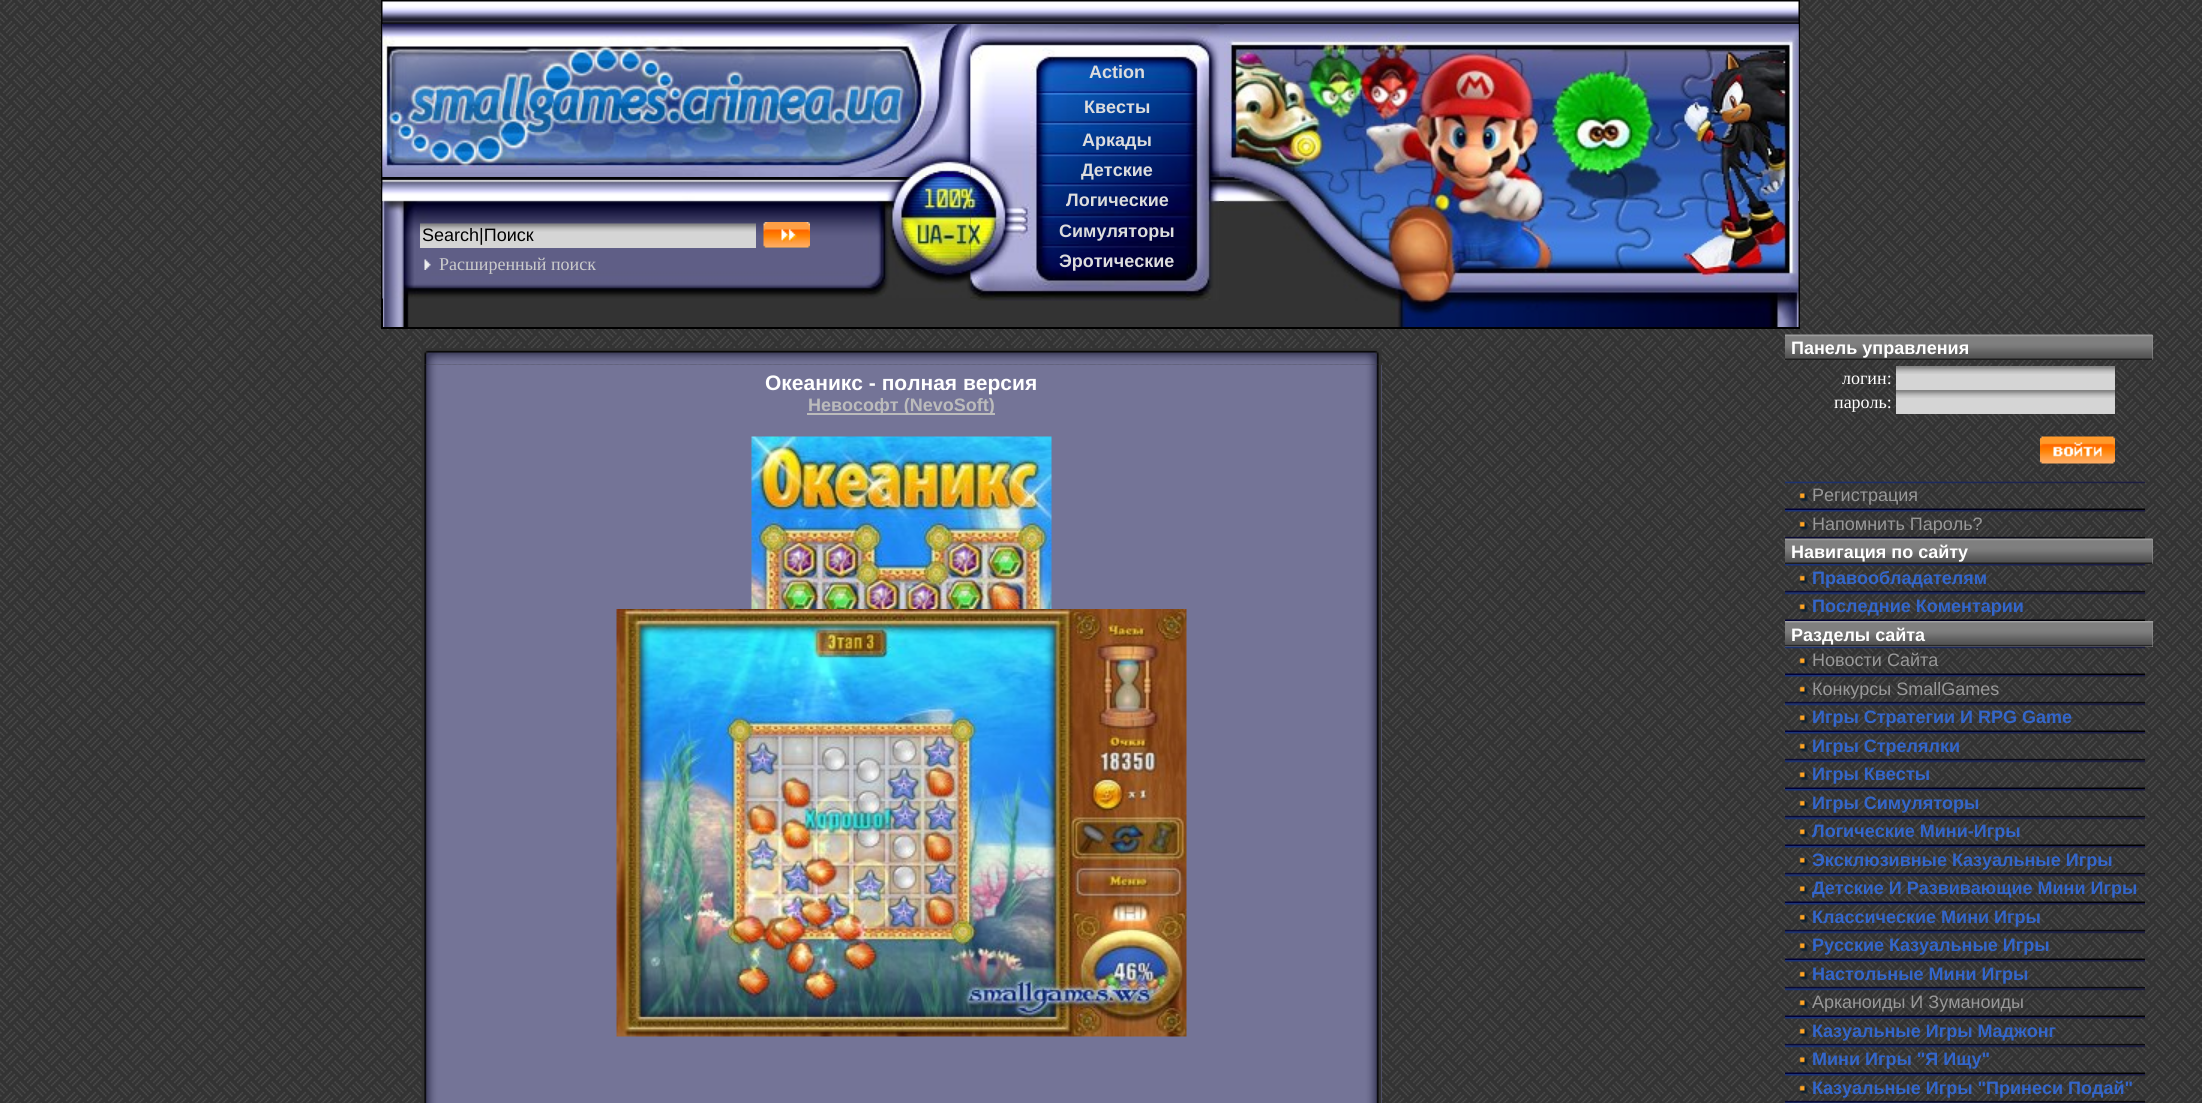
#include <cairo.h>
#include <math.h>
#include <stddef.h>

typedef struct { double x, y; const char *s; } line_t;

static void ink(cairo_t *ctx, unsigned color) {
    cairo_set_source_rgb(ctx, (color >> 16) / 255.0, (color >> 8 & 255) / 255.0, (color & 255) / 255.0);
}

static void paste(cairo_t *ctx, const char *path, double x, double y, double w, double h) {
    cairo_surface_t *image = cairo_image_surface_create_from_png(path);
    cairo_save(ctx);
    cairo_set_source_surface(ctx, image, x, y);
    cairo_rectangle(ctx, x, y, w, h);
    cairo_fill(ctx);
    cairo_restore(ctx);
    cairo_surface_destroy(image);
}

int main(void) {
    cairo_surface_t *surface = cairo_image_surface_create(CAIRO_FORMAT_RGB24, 2202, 1103);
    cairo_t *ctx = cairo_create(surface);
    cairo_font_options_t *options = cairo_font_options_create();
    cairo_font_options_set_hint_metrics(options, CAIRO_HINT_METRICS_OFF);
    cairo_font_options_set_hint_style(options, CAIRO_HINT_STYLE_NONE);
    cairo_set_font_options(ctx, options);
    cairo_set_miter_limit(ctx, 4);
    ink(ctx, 0xFFFFFF);
    cairo_paint(ctx);
    paste(ctx, "media/1.png", 0, 0, 2202, 1103);
    paste(ctx, "media/2.png", 383, 201, 841, 126);
    cairo_rectangle(ctx, 382, 1, 1417, 327);
    ink(ctx, 0x000000);
    cairo_stroke(ctx);
    paste(ctx, "media/3.png", 382, 1, 1417, 200);
    paste(ctx, "media/4.png", 382, 24, 589, 153);
    paste(ctx, "media/5.png", 382, 177, 589, 122);
    ink(ctx, 0xD5D5D5);
    cairo_rectangle(ctx, 420, 232, 336, 16);
    cairo_fill(ctx);
    paste(ctx, "media/6.png", 420, 223, 336, 9);
    cairo_select_font_face(ctx, "Liberation Sans", CAIRO_FONT_SLANT_NORMAL, CAIRO_FONT_WEIGHT_NORMAL);
    cairo_set_font_size(ctx, 18);
    ink(ctx, 0x000000);
    cairo_move_to(ctx, 422, 241);
    cairo_show_text(ctx, "Search|Поиск");
    ink(ctx, 0x6A6A6A);
    cairo_rectangle(ctx, 764, 222, 46, 26);
    cairo_fill(ctx);
    paste(ctx, "media/7.png", 763, 222, 47, 26);
    paste(ctx, "media/8.png", 424, 259, 7, 11);
    cairo_select_font_face(ctx, "Liberation Serif", CAIRO_FONT_SLANT_NORMAL, CAIRO_FONT_WEIGHT_NORMAL);
    ink(ctx, 0xCCCCCC);
    cairo_move_to(ctx, 439, 270);
    cairo_show_text(ctx, "Расширенный поиск");
    paste(ctx, "media/9.png", 970, 24, 250, 277);
    cairo_select_font_face(ctx, "Liberation Sans", CAIRO_FONT_SLANT_NORMAL, CAIRO_FONT_WEIGHT_BOLD);
    ink(ctx, 0xDDDDDD);
    {
        static const line_t items[] = {
            {1089, 78, "Action"},
            {1084, 113, "Квесты"},
            {1082, 146, "Аркады"},
            {1081, 176, "Детские"},
            {1066, 206, "Логические"},
            {1059, 237, "Симуляторы"},
            {1059, 267, "Эротические"},
        };
        for (size_t i = 0; i < sizeof items / sizeof *items; i++) {
            cairo_move_to(ctx, items[i].x, items[i].y);
            cairo_show_text(ctx, items[i].s);
        }
    }
    paste(ctx, "media/10.png", 1224, 24, 575, 303);
    paste(ctx, "media/11.png", 421, 348, 961, 17);
    ink(ctx, 0x666699);
    cairo_rectangle(ctx, 1381, 365, 1, 738);
    cairo_fill(ctx);
    paste(ctx, "media/12.png", 421, 364, 961, 739);
    cairo_set_font_size(ctx, 21);
    ink(ctx, 0xFFFFFF);
    cairo_move_to(ctx, 765, 390);
    cairo_show_text(ctx, "Океаникс - полная версия");
    ink(ctx, 0xBBBBBB);
    cairo_rectangle(ctx, 807, 413, 188, 2);
    cairo_fill(ctx);
    cairo_set_font_size(ctx, 18);
    cairo_move_to(ctx, 808, 411);
    cairo_show_text(ctx, "Невософт (NevoSoft)");
    paste(ctx, "media/13.png", 751, 436, 301, 173);
    paste(ctx, "media/14.png", 616, 609, 571, 428);
    ink(ctx, 0x999999);
    cairo_rectangle(ctx, 2152, 335, 1, 25);
    cairo_fill(ctx);
    paste(ctx, "media/15.png", 1785, 334, 368, 26);
    ink(ctx, 0xFFFFFF);
    cairo_move_to(ctx, 1791, 354);
    cairo_show_text(ctx, "Панель управления");
    cairo_select_font_face(ctx, "Liberation Serif", CAIRO_FONT_SLANT_NORMAL, CAIRO_FONT_WEIGHT_NORMAL);
    cairo_move_to(ctx, 1842, 384);
    cairo_show_text(ctx, "логин:");
    ink(ctx, 0xD5D5D5);
    cairo_rectangle(ctx, 1896, 374, 219, 16);
    cairo_fill(ctx);
    paste(ctx, "media/16.png", 1896, 366, 219, 8);
    ink(ctx, 0xFFFFFF);
    cairo_move_to(ctx, 1834, 408);
    cairo_show_text(ctx, "пароль:");
    ink(ctx, 0xD5D5D5);
    cairo_rectangle(ctx, 1896, 398, 219, 16);
    cairo_fill(ctx);
    paste(ctx, "media/16.png", 1896, 390, 219, 8);
    paste(ctx, "media/17.png", 2040, 436, 75, 28);
    paste(ctx, "media/18.png", 1785, 481, 360, 29);
    cairo_select_font_face(ctx, "Liberation Sans", CAIRO_FONT_SLANT_NORMAL, CAIRO_FONT_WEIGHT_NORMAL);
    ink(ctx, 0x999999);
    cairo_move_to(ctx, 1812, 501);
    cairo_show_text(ctx, "Регистрация");
    cairo_rectangle(ctx, 2152, 539, 1, 25);
    cairo_fill(ctx);
    paste(ctx, "media/20.png", 1785, 538, 368, 26);
    paste(ctx, "media/19.png", 1785, 510, 360, 29);
    cairo_move_to(ctx, 1812, 530);
    cairo_show_text(ctx, "Напомнить Пароль?");
    cairo_select_font_face(ctx, "Liberation Sans", CAIRO_FONT_SLANT_NORMAL, CAIRO_FONT_WEIGHT_BOLD);
    ink(ctx, 0xFFFFFF);
    cairo_move_to(ctx, 1791, 558);
    cairo_show_text(ctx, "Навигация по сайту");
    paste(ctx, "media/21.png", 1785, 564, 360, 29);
    ink(ctx, 0x3366CC);
    cairo_move_to(ctx, 1812, 584);
    cairo_show_text(ctx, "Правообладателям");
    paste(ctx, "media/22.png", 1785, 592, 360, 29);
    cairo_move_to(ctx, 1812, 612);
    cairo_show_text(ctx, "Последние Коментарии");
    ink(ctx, 0x999999);
    cairo_rectangle(ctx, 1785, 621, 368, 26);
    cairo_fill(ctx);
    paste(ctx, "media/23.png", 1785, 621, 368, 26);
    ink(ctx, 0xFFFFFF);
    cairo_move_to(ctx, 1791, 641);
    cairo_show_text(ctx, "Разделы сайта");
    paste(ctx, "media/24.png", 1785, 646, 360, 29);
    cairo_select_font_face(ctx, "Liberation Sans", CAIRO_FONT_SLANT_NORMAL, CAIRO_FONT_WEIGHT_NORMAL);
    ink(ctx, 0x999999);
    cairo_move_to(ctx, 1812, 666);
    cairo_show_text(ctx, "Новости Сайта");
    paste(ctx, "media/25.png", 1785, 675, 360, 29);
    cairo_move_to(ctx, 1812, 695);
    cairo_show_text(ctx, "Конкурсы SmallGames");
    paste(ctx, "media/26.png", 1785, 703, 360, 29);
    cairo_select_font_face(ctx, "Liberation Sans", CAIRO_FONT_SLANT_NORMAL, CAIRO_FONT_WEIGHT_BOLD);
    ink(ctx, 0x3366CC);
    cairo_move_to(ctx, 1812, 723);
    cairo_show_text(ctx, "Игры Стратегии И RPG Game");
    paste(ctx, "media/21.png", 1785, 732, 360, 29);
    cairo_move_to(ctx, 1812, 752);
    cairo_show_text(ctx, "Игры Стрелялки");
    paste(ctx, "media/22.png", 1785, 760, 360, 29);
    cairo_move_to(ctx, 1812, 780);
    cairo_show_text(ctx, "Игры Квесты");
    paste(ctx, "media/27.png", 1785, 789, 360, 29);
    cairo_move_to(ctx, 1812, 809);
    cairo_show_text(ctx, "Игры Симуляторы");
    paste(ctx, "media/28.png", 1785, 817, 360, 29);
    cairo_move_to(ctx, 1812, 837);
    cairo_show_text(ctx, "Логические Мини-Игры");
    paste(ctx, "media/29.png", 1785, 846, 360, 29);
    cairo_move_to(ctx, 1812, 866);
    cairo_show_text(ctx, "Эксклюзивные Казуальные Игры");
    paste(ctx, "media/30.png", 1785, 874, 360, 29);
    cairo_move_to(ctx, 1812, 894);
    cairo_show_text(ctx, "Детские И Развивающие Мини Игры");
    paste(ctx, "media/31.png", 1785, 903, 360, 29);
    cairo_move_to(ctx, 1812, 923);
    cairo_show_text(ctx, "Классические Мини Игры");
    paste(ctx, "media/32.png", 1785, 931, 360, 29);
    cairo_move_to(ctx, 1812, 951);
    cairo_show_text(ctx, "Русские Казуальные Игры");
    paste(ctx, "media/33.png", 1785, 960, 360, 29);
    cairo_move_to(ctx, 1812, 980);
    cairo_show_text(ctx, "Настольные Мини Игры");
    paste(ctx, "media/34.png", 1785, 988, 360, 29);
    cairo_select_font_face(ctx, "Liberation Sans", CAIRO_FONT_SLANT_NORMAL, CAIRO_FONT_WEIGHT_NORMAL);
    ink(ctx, 0x999999);
    cairo_move_to(ctx, 1812, 1008);
    cairo_show_text(ctx, "Арканоиды И Зуманоиды");
    paste(ctx, "media/35.png", 1785, 1017, 360, 29);
    cairo_select_font_face(ctx, "Liberation Sans", CAIRO_FONT_SLANT_NORMAL, CAIRO_FONT_WEIGHT_BOLD);
    ink(ctx, 0x3366CC);
    cairo_move_to(ctx, 1812, 1037);
    cairo_show_text(ctx, "Казуальные Игры Маджонг");
    paste(ctx, "media/36.png", 1785, 1045, 360, 29);
    cairo_move_to(ctx, 1812, 1065);
    cairo_show_text(ctx, "Мини Игры \"Я Ищу\"");
    paste(ctx, "media/25.png", 1785, 1074, 360, 29);
    cairo_move_to(ctx, 1812, 1094);
    cairo_show_text(ctx, "Казуальные Игры \"Принеси Подай\"");
    paste(ctx, "media/37.png", 1785, 1102, 360, 1);
    cairo_surface_write_to_png(surface, "image.png");
    cairo_font_options_destroy(options);
    cairo_destroy(ctx);
    cairo_surface_destroy(surface);
    return 0;
}
